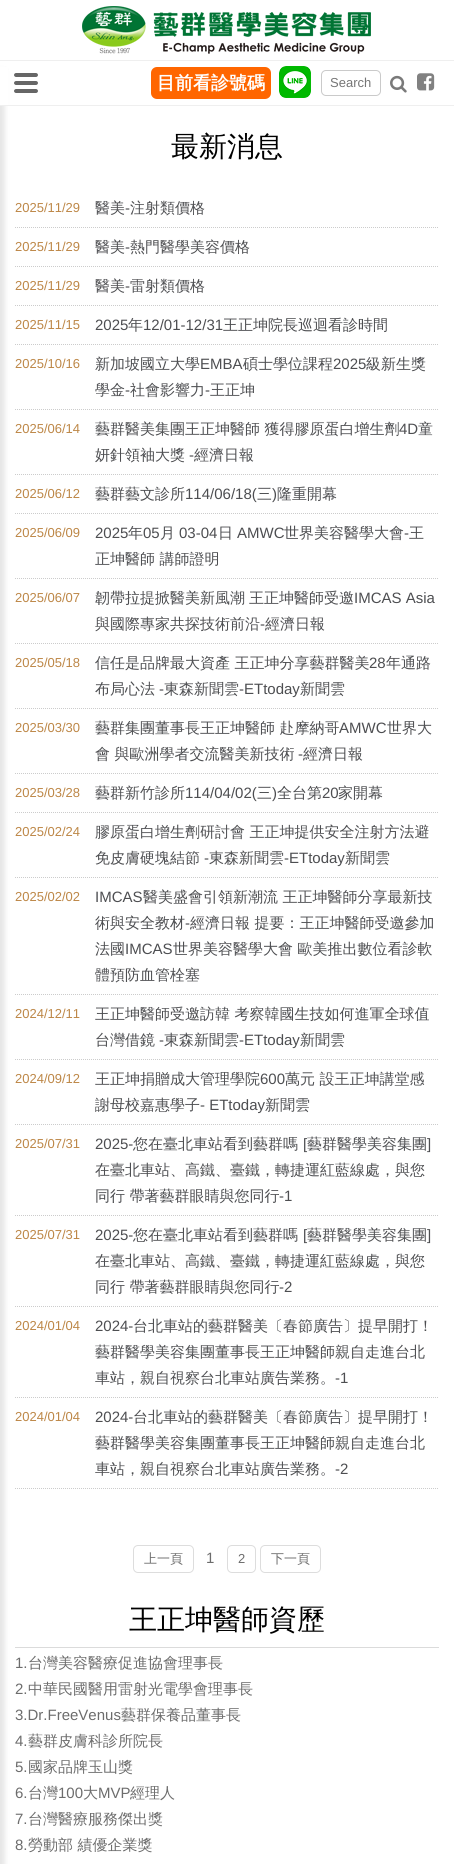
#include <cairo.h>
#include <math.h>
#include <stddef.h>

typedef struct { double x, y; const char *s; } line_t;
typedef struct { double x, y, w, h; unsigned color; } box_t;

static void ink(cairo_t *ctx, unsigned color) {
    cairo_set_source_rgb(ctx, (color >> 16) / 255.0, (color >> 8 & 255) / 255.0, (color & 255) / 255.0);
}

static void round_path(cairo_t *ctx, double x, double y, double w, double h, double r) {
    cairo_new_sub_path(ctx);
    cairo_arc(ctx, x + w - r, y + h - r, r, 0, M_PI / 2);
    cairo_arc(ctx, x + r, y + h - r, r, M_PI / 2, M_PI);
    cairo_arc(ctx, x + r, y + r, r, M_PI, 1.5 * M_PI);
    cairo_arc(ctx, x + w - r, y + r, r, 1.5 * M_PI, 2 * M_PI);
    cairo_close_path(ctx);
}

static void blur_box(cairo_t *ctx, double x, double y, double w, double h, double r, double blur, double alpha) {
    cairo_push_group_with_content(ctx, CAIRO_CONTENT_ALPHA);
    cairo_set_operator(ctx, CAIRO_OPERATOR_SOURCE);
    for (int i = 15; i >= -15 && fmin(w, h) + blur * i / 3 > 0; i -= 2) {
        double e = blur * i / 6;
        cairo_set_source_rgba(ctx, 0, 0, 0, alpha * erfc((i - 1) / 8.5) / 2);
        round_path(ctx, x - e, y - e, w + 2 * e, h + 2 * e, fmax(0, fmin(r + e + blur * .6, fmin(w, h) / 2 + e)));
        cairo_fill(ctx);
    }
    cairo_pattern_t *soft = cairo_pop_group(ctx);
    cairo_mask(ctx, soft);
    cairo_pattern_destroy(soft);
}

static void paste(cairo_t *ctx, const char *path, double x, double y, double w, double h) {
    cairo_surface_t *image = cairo_image_surface_create_from_png(path);
    cairo_save(ctx);
    cairo_set_source_surface(ctx, image, x, y);
    cairo_rectangle(ctx, x, y, w, h);
    cairo_fill(ctx);
    cairo_restore(ctx);
    cairo_surface_destroy(image);
}

int main(void) {
    cairo_surface_t *surface = cairo_image_surface_create(CAIRO_FORMAT_RGB24, 454, 1864);
    cairo_t *ctx = cairo_create(surface);
    cairo_font_options_t *options = cairo_font_options_create();
    cairo_font_options_set_hint_metrics(options, CAIRO_HINT_METRICS_OFF);
    cairo_font_options_set_hint_style(options, CAIRO_HINT_STYLE_NONE);
    cairo_set_font_options(ctx, options);
    cairo_set_miter_limit(ctx, 4);
    ink(ctx, 0xFFFFFF);
    cairo_paint(ctx);
    ink(ctx, 0x000000);
    blur_box(ctx, -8, 70, 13, 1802, 0, 2.5, 0.1);
    {
        static const box_t items[] = {
            {0, 67, 8, 38, 0xFFFFFF},
            {0, 60, 454, 1, 0xEFEFEF},
            {0, 105, 454, 1, 0xEFEFEF},
        };
        for (size_t i = 0; i < sizeof items / sizeof *items; i++) {
            ink(ctx, items[i].color);
            cairo_rectangle(ctx, items[i].x, items[i].y, items[i].w, items[i].h);
            cairo_fill(ctx);
        }
    }
    ink(ctx, 0x666666);
    cairo_new_path(ctx);
    cairo_move_to(ctx, 36, 85);
    cairo_line_to(ctx, 16, 85);
    cairo_curve_to(ctx, 15, 85, 14, 84, 14, 83);
    cairo_curve_to(ctx, 14, 82, 15, 81, 16, 81);
    cairo_line_to(ctx, 36, 81);
    cairo_curve_to(ctx, 37, 81, 38, 82, 38, 83);
    cairo_curve_to(ctx, 38, 84, 37, 85, 36, 85);
    cairo_close_path(ctx);
    cairo_move_to(ctx, 36, 93);
    cairo_line_to(ctx, 16, 93);
    cairo_curve_to(ctx, 15, 93, 14, 92, 14, 91);
    cairo_curve_to(ctx, 14, 90, 15, 89, 16, 89);
    cairo_line_to(ctx, 36, 89);
    cairo_curve_to(ctx, 37, 89, 38, 90, 38, 91);
    cairo_curve_to(ctx, 38, 92, 37, 93, 36, 93);
    cairo_close_path(ctx);
    cairo_move_to(ctx, 36, 77);
    cairo_line_to(ctx, 16, 77);
    cairo_curve_to(ctx, 15, 77, 14, 76, 14, 75);
    cairo_curve_to(ctx, 14, 74, 15, 73, 16, 73);
    cairo_line_to(ctx, 36, 73);
    cairo_curve_to(ctx, 37, 73, 38, 74, 38, 75);
    cairo_curve_to(ctx, 38, 76, 37, 77, 36, 77);
    cairo_close_path(ctx);
    cairo_fill(ctx);
    ink(ctx, 0xFF6600);
    round_path(ctx, 151, 67, 120, 32, 6);
    cairo_fill(ctx);
    cairo_select_font_face(ctx, "WenQuanYi Zen Hei", CAIRO_FONT_SLANT_NORMAL, CAIRO_FONT_WEIGHT_BOLD);
    cairo_set_font_size(ctx, 18);
    ink(ctx, 0xFFFFFF);
    cairo_move_to(ctx, 157, 89);
    cairo_show_text(ctx, "目前看診號碼");
    paste(ctx, "media/1.png", 279, 66, 32, 32);
    round_path(ctx, 321.5, 70.5, 59, 25, 4.5);
    ink(ctx, 0xCACACA);
    cairo_set_line_width(ctx, 1);
    cairo_stroke(ctx);
    cairo_select_font_face(ctx, "Liberation Sans", CAIRO_FONT_SLANT_NORMAL, CAIRO_FONT_WEIGHT_NORMAL);
    cairo_set_font_size(ctx, 13);
    ink(ctx, 0x757575);
    cairo_move_to(ctx, 330, 87);
    cairo_show_text(ctx, "Search");
    paste(ctx, "media/2.png", 390, 75, 17, 18);
    paste(ctx, "media/3.png", 417, 73, 18, 18);
    paste(ctx, "media/4.png", 82, 6, 289, 48);
    cairo_select_font_face(ctx, "WenQuanYi Zen Hei Medium", CAIRO_FONT_SLANT_NORMAL, CAIRO_FONT_WEIGHT_NORMAL);
    cairo_set_font_size(ctx, 28);
    ink(ctx, 0x000000);
    cairo_move_to(ctx, 171, 156);
    cairo_show_text(ctx, "最新消息");
    cairo_new_path(ctx);
    cairo_move_to(ctx, 15, 227.5);
    cairo_line_to(ctx, 439, 227.5);
    ink(ctx, 0xCCCCCC);
    cairo_set_dash(ctx, (double[]){1, 1}, 2, 0);
    cairo_stroke(ctx);
    cairo_select_font_face(ctx, "Liberation Sans", CAIRO_FONT_SLANT_NORMAL, CAIRO_FONT_WEIGHT_NORMAL);
    cairo_set_font_size(ctx, 13);
    ink(ctx, 0xBD8747);
    cairo_move_to(ctx, 15, 212);
    cairo_show_text(ctx, "2025/11/29");
    cairo_select_font_face(ctx, "WenQuanYi Zen Hei Medium", CAIRO_FONT_SLANT_NORMAL, CAIRO_FONT_WEIGHT_NORMAL);
    cairo_set_font_size(ctx, 15);
    ink(ctx, 0x4D4E51);
    cairo_move_to(ctx, 95, 213);
    cairo_show_text(ctx, "醫美");
    cairo_select_font_face(ctx, "Liberation Sans", CAIRO_FONT_SLANT_NORMAL, CAIRO_FONT_WEIGHT_NORMAL);
    cairo_move_to(ctx, 125, 213);
    cairo_show_text(ctx, "-");
    cairo_select_font_face(ctx, "WenQuanYi Zen Hei Medium", CAIRO_FONT_SLANT_NORMAL, CAIRO_FONT_WEIGHT_NORMAL);
    cairo_move_to(ctx, 130, 213);
    cairo_show_text(ctx, "注射類價格");
    cairo_new_path(ctx);
    cairo_move_to(ctx, 15, 266.5);
    cairo_line_to(ctx, 439, 266.5);
    ink(ctx, 0xCCCCCC);
    cairo_stroke(ctx);
    cairo_select_font_face(ctx, "Liberation Sans", CAIRO_FONT_SLANT_NORMAL, CAIRO_FONT_WEIGHT_NORMAL);
    cairo_set_font_size(ctx, 13);
    ink(ctx, 0xBD8747);
    cairo_move_to(ctx, 15, 251);
    cairo_show_text(ctx, "2025/11/29");
    cairo_select_font_face(ctx, "WenQuanYi Zen Hei Medium", CAIRO_FONT_SLANT_NORMAL, CAIRO_FONT_WEIGHT_NORMAL);
    cairo_set_font_size(ctx, 15);
    ink(ctx, 0x4D4E51);
    cairo_move_to(ctx, 95, 252);
    cairo_show_text(ctx, "醫美");
    cairo_select_font_face(ctx, "Liberation Sans", CAIRO_FONT_SLANT_NORMAL, CAIRO_FONT_WEIGHT_NORMAL);
    cairo_move_to(ctx, 125, 252);
    cairo_show_text(ctx, "-");
    cairo_select_font_face(ctx, "WenQuanYi Zen Hei Medium", CAIRO_FONT_SLANT_NORMAL, CAIRO_FONT_WEIGHT_NORMAL);
    cairo_move_to(ctx, 130, 252);
    cairo_show_text(ctx, "熱門醫學美容價格");
    cairo_new_path(ctx);
    cairo_move_to(ctx, 15, 305.5);
    cairo_line_to(ctx, 439, 305.5);
    ink(ctx, 0xCCCCCC);
    cairo_stroke(ctx);
    cairo_select_font_face(ctx, "Liberation Sans", CAIRO_FONT_SLANT_NORMAL, CAIRO_FONT_WEIGHT_NORMAL);
    cairo_set_font_size(ctx, 13);
    ink(ctx, 0xBD8747);
    cairo_move_to(ctx, 15, 290);
    cairo_show_text(ctx, "2025/11/29");
    cairo_select_font_face(ctx, "WenQuanYi Zen Hei Medium", CAIRO_FONT_SLANT_NORMAL, CAIRO_FONT_WEIGHT_NORMAL);
    cairo_set_font_size(ctx, 15);
    ink(ctx, 0x4D4E51);
    cairo_move_to(ctx, 95, 291);
    cairo_show_text(ctx, "醫美");
    cairo_select_font_face(ctx, "Liberation Sans", CAIRO_FONT_SLANT_NORMAL, CAIRO_FONT_WEIGHT_NORMAL);
    cairo_move_to(ctx, 125, 291);
    cairo_show_text(ctx, "-");
    cairo_select_font_face(ctx, "WenQuanYi Zen Hei Medium", CAIRO_FONT_SLANT_NORMAL, CAIRO_FONT_WEIGHT_NORMAL);
    cairo_move_to(ctx, 130, 291);
    cairo_show_text(ctx, "雷射類價格");
    cairo_new_path(ctx);
    cairo_move_to(ctx, 15, 344.5);
    cairo_line_to(ctx, 439, 344.5);
    ink(ctx, 0xCCCCCC);
    cairo_stroke(ctx);
    cairo_select_font_face(ctx, "Liberation Sans", CAIRO_FONT_SLANT_NORMAL, CAIRO_FONT_WEIGHT_NORMAL);
    cairo_set_font_size(ctx, 13);
    ink(ctx, 0xBD8747);
    cairo_move_to(ctx, 15, 329);
    cairo_show_text(ctx, "2025/11/15");
    cairo_set_font_size(ctx, 15);
    ink(ctx, 0x4D4E51);
    cairo_move_to(ctx, 95, 330);
    cairo_show_text(ctx, "2025");
    cairo_select_font_face(ctx, "WenQuanYi Zen Hei Medium", CAIRO_FONT_SLANT_NORMAL, CAIRO_FONT_WEIGHT_NORMAL);
    cairo_move_to(ctx, 128, 330);
    cairo_show_text(ctx, "年");
    cairo_select_font_face(ctx, "Liberation Sans", CAIRO_FONT_SLANT_NORMAL, CAIRO_FONT_WEIGHT_NORMAL);
    cairo_move_to(ctx, 143, 330);
    cairo_show_text(ctx, "12/01-12/31");
    cairo_select_font_face(ctx, "WenQuanYi Zen Hei Medium", CAIRO_FONT_SLANT_NORMAL, CAIRO_FONT_WEIGHT_NORMAL);
    cairo_move_to(ctx, 223, 330);
    cairo_show_text(ctx, "王正坤院長巡迴看診時間");
    cairo_new_path(ctx);
    cairo_move_to(ctx, 15, 409.5);
    cairo_line_to(ctx, 439, 409.5);
    ink(ctx, 0xCCCCCC);
    cairo_stroke(ctx);
    cairo_select_font_face(ctx, "Liberation Sans", CAIRO_FONT_SLANT_NORMAL, CAIRO_FONT_WEIGHT_NORMAL);
    cairo_set_font_size(ctx, 13);
    ink(ctx, 0xBD8747);
    cairo_move_to(ctx, 15, 368);
    cairo_show_text(ctx, "2025/10/16");
    cairo_select_font_face(ctx, "WenQuanYi Zen Hei Medium", CAIRO_FONT_SLANT_NORMAL, CAIRO_FONT_WEIGHT_NORMAL);
    cairo_set_font_size(ctx, 15);
    ink(ctx, 0x4D4E51);
    cairo_move_to(ctx, 95, 369);
    cairo_show_text(ctx, "新加坡國立大學");
    cairo_select_font_face(ctx, "Liberation Sans", CAIRO_FONT_SLANT_NORMAL, CAIRO_FONT_WEIGHT_NORMAL);
    cairo_move_to(ctx, 200, 369);
    cairo_show_text(ctx, "EMBA");
    cairo_select_font_face(ctx, "WenQuanYi Zen Hei Medium", CAIRO_FONT_SLANT_NORMAL, CAIRO_FONT_WEIGHT_NORMAL);
    cairo_move_to(ctx, 243, 369);
    cairo_show_text(ctx, "碩士學位課程");
    cairo_select_font_face(ctx, "Liberation Sans", CAIRO_FONT_SLANT_NORMAL, CAIRO_FONT_WEIGHT_NORMAL);
    cairo_move_to(ctx, 333, 369);
    cairo_show_text(ctx, "2025");
    cairo_select_font_face(ctx, "WenQuanYi Zen Hei Medium", CAIRO_FONT_SLANT_NORMAL, CAIRO_FONT_WEIGHT_NORMAL);
    cairo_move_to(ctx, 366, 369);
    cairo_show_text(ctx, "級新生獎");
    cairo_move_to(ctx, 95, 395);
    cairo_show_text(ctx, "學金");
    cairo_select_font_face(ctx, "Liberation Sans", CAIRO_FONT_SLANT_NORMAL, CAIRO_FONT_WEIGHT_NORMAL);
    cairo_move_to(ctx, 125, 395);
    cairo_show_text(ctx, "-");
    cairo_select_font_face(ctx, "WenQuanYi Zen Hei Medium", CAIRO_FONT_SLANT_NORMAL, CAIRO_FONT_WEIGHT_NORMAL);
    cairo_move_to(ctx, 130, 395);
    cairo_show_text(ctx, "社會影響力");
    cairo_select_font_face(ctx, "Liberation Sans", CAIRO_FONT_SLANT_NORMAL, CAIRO_FONT_WEIGHT_NORMAL);
    cairo_move_to(ctx, 205, 395);
    cairo_show_text(ctx, "-");
    cairo_select_font_face(ctx, "WenQuanYi Zen Hei Medium", CAIRO_FONT_SLANT_NORMAL, CAIRO_FONT_WEIGHT_NORMAL);
    cairo_move_to(ctx, 210, 395);
    cairo_show_text(ctx, "王正坤");
    cairo_new_path(ctx);
    cairo_move_to(ctx, 15, 474.5);
    cairo_line_to(ctx, 439, 474.5);
    ink(ctx, 0xCCCCCC);
    cairo_stroke(ctx);
    cairo_select_font_face(ctx, "Liberation Sans", CAIRO_FONT_SLANT_NORMAL, CAIRO_FONT_WEIGHT_NORMAL);
    cairo_set_font_size(ctx, 13);
    ink(ctx, 0xBD8747);
    cairo_move_to(ctx, 15, 433);
    cairo_show_text(ctx, "2025/06/14");
    cairo_select_font_face(ctx, "WenQuanYi Zen Hei Medium", CAIRO_FONT_SLANT_NORMAL, CAIRO_FONT_WEIGHT_NORMAL);
    cairo_set_font_size(ctx, 15);
    ink(ctx, 0x4D4E51);
    cairo_move_to(ctx, 95, 434);
    cairo_show_text(ctx, "藝群醫美集團王正坤醫師 獲得膠原蛋白增生劑");
    cairo_select_font_face(ctx, "Liberation Sans", CAIRO_FONT_SLANT_NORMAL, CAIRO_FONT_WEIGHT_NORMAL);
    cairo_move_to(ctx, 399, 434);
    cairo_show_text(ctx, "4D");
    cairo_select_font_face(ctx, "WenQuanYi Zen Hei Medium", CAIRO_FONT_SLANT_NORMAL, CAIRO_FONT_WEIGHT_NORMAL);
    cairo_move_to(ctx, 418, 434);
    cairo_show_text(ctx, "童");
    cairo_move_to(ctx, 95, 460);
    cairo_show_text(ctx, "妍針領袖大獎");
    cairo_select_font_face(ctx, "Liberation Sans", CAIRO_FONT_SLANT_NORMAL, CAIRO_FONT_WEIGHT_NORMAL);
    cairo_move_to(ctx, 189, 460);
    cairo_show_text(ctx, "-");
    cairo_select_font_face(ctx, "WenQuanYi Zen Hei Medium", CAIRO_FONT_SLANT_NORMAL, CAIRO_FONT_WEIGHT_NORMAL);
    cairo_move_to(ctx, 194, 460);
    cairo_show_text(ctx, "經濟日報");
    cairo_new_path(ctx);
    cairo_move_to(ctx, 15, 513.5);
    cairo_line_to(ctx, 439, 513.5);
    ink(ctx, 0xCCCCCC);
    cairo_stroke(ctx);
    cairo_select_font_face(ctx, "Liberation Sans", CAIRO_FONT_SLANT_NORMAL, CAIRO_FONT_WEIGHT_NORMAL);
    cairo_set_font_size(ctx, 13);
    ink(ctx, 0xBD8747);
    cairo_move_to(ctx, 15, 498);
    cairo_show_text(ctx, "2025/06/12");
    cairo_select_font_face(ctx, "WenQuanYi Zen Hei Medium", CAIRO_FONT_SLANT_NORMAL, CAIRO_FONT_WEIGHT_NORMAL);
    cairo_set_font_size(ctx, 15);
    ink(ctx, 0x4D4E51);
    cairo_move_to(ctx, 95, 499);
    cairo_show_text(ctx, "藝群藝文診所");
    cairo_select_font_face(ctx, "Liberation Sans", CAIRO_FONT_SLANT_NORMAL, CAIRO_FONT_WEIGHT_NORMAL);
    cairo_move_to(ctx, 185, 499);
    cairo_show_text(ctx, "114/06/18(");
    cairo_select_font_face(ctx, "WenQuanYi Zen Hei Medium", CAIRO_FONT_SLANT_NORMAL, CAIRO_FONT_WEIGHT_NORMAL);
    cairo_move_to(ctx, 257, 499);
    cairo_show_text(ctx, "三");
    cairo_select_font_face(ctx, "Liberation Sans", CAIRO_FONT_SLANT_NORMAL, CAIRO_FONT_WEIGHT_NORMAL);
    cairo_move_to(ctx, 272, 499);
    cairo_show_text(ctx, ")");
    cairo_select_font_face(ctx, "WenQuanYi Zen Hei Medium", CAIRO_FONT_SLANT_NORMAL, CAIRO_FONT_WEIGHT_NORMAL);
    cairo_move_to(ctx, 277, 499);
    cairo_show_text(ctx, "隆重開幕");
    cairo_new_path(ctx);
    cairo_move_to(ctx, 15, 578.5);
    cairo_line_to(ctx, 439, 578.5);
    ink(ctx, 0xCCCCCC);
    cairo_stroke(ctx);
    cairo_select_font_face(ctx, "Liberation Sans", CAIRO_FONT_SLANT_NORMAL, CAIRO_FONT_WEIGHT_NORMAL);
    cairo_set_font_size(ctx, 13);
    ink(ctx, 0xBD8747);
    cairo_move_to(ctx, 15, 537);
    cairo_show_text(ctx, "2025/06/09");
    cairo_set_font_size(ctx, 15);
    ink(ctx, 0x4D4E51);
    cairo_move_to(ctx, 95, 538);
    cairo_show_text(ctx, "2025");
    cairo_select_font_face(ctx, "WenQuanYi Zen Hei Medium", CAIRO_FONT_SLANT_NORMAL, CAIRO_FONT_WEIGHT_NORMAL);
    cairo_move_to(ctx, 128, 538);
    cairo_show_text(ctx, "年");
    cairo_select_font_face(ctx, "Liberation Sans", CAIRO_FONT_SLANT_NORMAL, CAIRO_FONT_WEIGHT_NORMAL);
    cairo_move_to(ctx, 143, 538);
    cairo_show_text(ctx, "05");
    cairo_select_font_face(ctx, "WenQuanYi Zen Hei Medium", CAIRO_FONT_SLANT_NORMAL, CAIRO_FONT_WEIGHT_NORMAL);
    cairo_move_to(ctx, 160, 538);
    cairo_show_text(ctx, "月");
    cairo_select_font_face(ctx, "Liberation Sans", CAIRO_FONT_SLANT_NORMAL, CAIRO_FONT_WEIGHT_NORMAL);
    cairo_move_to(ctx, 179, 538);
    cairo_show_text(ctx, "03-04");
    cairo_select_font_face(ctx, "WenQuanYi Zen Hei Medium", CAIRO_FONT_SLANT_NORMAL, CAIRO_FONT_WEIGHT_NORMAL);
    cairo_move_to(ctx, 218, 538);
    cairo_show_text(ctx, "日");
    cairo_select_font_face(ctx, "Liberation Sans", CAIRO_FONT_SLANT_NORMAL, CAIRO_FONT_WEIGHT_NORMAL);
    cairo_move_to(ctx, 237, 538);
    cairo_show_text(ctx, "AMWC");
    cairo_select_font_face(ctx, "WenQuanYi Zen Hei Medium", CAIRO_FONT_SLANT_NORMAL, CAIRO_FONT_WEIGHT_NORMAL);
    cairo_move_to(ctx, 284, 538);
    cairo_show_text(ctx, "世界美容醫學大會");
    cairo_select_font_face(ctx, "Liberation Sans", CAIRO_FONT_SLANT_NORMAL, CAIRO_FONT_WEIGHT_NORMAL);
    cairo_move_to(ctx, 404, 538);
    cairo_show_text(ctx, "-");
    cairo_select_font_face(ctx, "WenQuanYi Zen Hei Medium", CAIRO_FONT_SLANT_NORMAL, CAIRO_FONT_WEIGHT_NORMAL);
    cairo_move_to(ctx, 409, 538);
    cairo_show_text(ctx, "王");
    cairo_move_to(ctx, 95, 564);
    cairo_show_text(ctx, "正坤醫師 講師證明");
    cairo_new_path(ctx);
    cairo_move_to(ctx, 15, 643.5);
    cairo_line_to(ctx, 439, 643.5);
    ink(ctx, 0xCCCCCC);
    cairo_stroke(ctx);
    cairo_select_font_face(ctx, "Liberation Sans", CAIRO_FONT_SLANT_NORMAL, CAIRO_FONT_WEIGHT_NORMAL);
    cairo_set_font_size(ctx, 13);
    ink(ctx, 0xBD8747);
    cairo_move_to(ctx, 15, 602);
    cairo_show_text(ctx, "2025/06/07");
    cairo_select_font_face(ctx, "WenQuanYi Zen Hei Medium", CAIRO_FONT_SLANT_NORMAL, CAIRO_FONT_WEIGHT_NORMAL);
    cairo_set_font_size(ctx, 15);
    ink(ctx, 0x4D4E51);
    cairo_move_to(ctx, 95, 603);
    cairo_show_text(ctx, "韌帶拉提掀醫美新風潮");
    cairo_move_to(ctx, 249, 603);
    cairo_show_text(ctx, "王正坤醫師受邀");
    cairo_select_font_face(ctx, "Liberation Sans", CAIRO_FONT_SLANT_NORMAL, CAIRO_FONT_WEIGHT_NORMAL);
    cairo_move_to(ctx, 354, 603);
    cairo_show_text(ctx, "IMCAS Asia");
    cairo_select_font_face(ctx, "WenQuanYi Zen Hei Medium", CAIRO_FONT_SLANT_NORMAL, CAIRO_FONT_WEIGHT_NORMAL);
    cairo_move_to(ctx, 95, 629);
    cairo_show_text(ctx, "與國際專家共探技術前沿");
    cairo_select_font_face(ctx, "Liberation Sans", CAIRO_FONT_SLANT_NORMAL, CAIRO_FONT_WEIGHT_NORMAL);
    cairo_move_to(ctx, 260, 629);
    cairo_show_text(ctx, "-");
    cairo_select_font_face(ctx, "WenQuanYi Zen Hei Medium", CAIRO_FONT_SLANT_NORMAL, CAIRO_FONT_WEIGHT_NORMAL);
    cairo_move_to(ctx, 265, 629);
    cairo_show_text(ctx, "經濟日報");
    cairo_new_path(ctx);
    cairo_move_to(ctx, 15, 708.5);
    cairo_line_to(ctx, 439, 708.5);
    ink(ctx, 0xCCCCCC);
    cairo_stroke(ctx);
    cairo_select_font_face(ctx, "Liberation Sans", CAIRO_FONT_SLANT_NORMAL, CAIRO_FONT_WEIGHT_NORMAL);
    cairo_set_font_size(ctx, 13);
    ink(ctx, 0xBD8747);
    cairo_move_to(ctx, 15, 667);
    cairo_show_text(ctx, "2025/05/18");
    cairo_select_font_face(ctx, "WenQuanYi Zen Hei Medium", CAIRO_FONT_SLANT_NORMAL, CAIRO_FONT_WEIGHT_NORMAL);
    cairo_set_font_size(ctx, 15);
    ink(ctx, 0x4D4E51);
    cairo_move_to(ctx, 95, 668);
    cairo_show_text(ctx, "信任是品牌最大資產 王正坤分享藝群醫美");
    cairo_select_font_face(ctx, "Liberation Sans", CAIRO_FONT_SLANT_NORMAL, CAIRO_FONT_WEIGHT_NORMAL);
    cairo_move_to(ctx, 369, 668);
    cairo_show_text(ctx, "28");
    cairo_select_font_face(ctx, "WenQuanYi Zen Hei Medium", CAIRO_FONT_SLANT_NORMAL, CAIRO_FONT_WEIGHT_NORMAL);
    cairo_move_to(ctx, 386, 668);
    cairo_show_text(ctx, "年通路");
    cairo_move_to(ctx, 95, 694);
    cairo_show_text(ctx, "布局心法");
    cairo_select_font_face(ctx, "Liberation Sans", CAIRO_FONT_SLANT_NORMAL, CAIRO_FONT_WEIGHT_NORMAL);
    cairo_move_to(ctx, 159, 694);
    cairo_show_text(ctx, "-");
    cairo_select_font_face(ctx, "WenQuanYi Zen Hei Medium", CAIRO_FONT_SLANT_NORMAL, CAIRO_FONT_WEIGHT_NORMAL);
    cairo_move_to(ctx, 164, 694);
    cairo_show_text(ctx, "東森新聞雲");
    cairo_select_font_face(ctx, "Liberation Sans", CAIRO_FONT_SLANT_NORMAL, CAIRO_FONT_WEIGHT_NORMAL);
    cairo_move_to(ctx, 239, 694);
    cairo_show_text(ctx, "-ETtoday");
    cairo_select_font_face(ctx, "WenQuanYi Zen Hei Medium", CAIRO_FONT_SLANT_NORMAL, CAIRO_FONT_WEIGHT_NORMAL);
    cairo_move_to(ctx, 300, 694);
    cairo_show_text(ctx, "新聞雲");
    cairo_new_path(ctx);
    cairo_move_to(ctx, 15, 773.5);
    cairo_line_to(ctx, 439, 773.5);
    ink(ctx, 0xCCCCCC);
    cairo_stroke(ctx);
    cairo_select_font_face(ctx, "Liberation Sans", CAIRO_FONT_SLANT_NORMAL, CAIRO_FONT_WEIGHT_NORMAL);
    cairo_set_font_size(ctx, 13);
    ink(ctx, 0xBD8747);
    cairo_move_to(ctx, 15, 732);
    cairo_show_text(ctx, "2025/03/30");
    cairo_select_font_face(ctx, "WenQuanYi Zen Hei Medium", CAIRO_FONT_SLANT_NORMAL, CAIRO_FONT_WEIGHT_NORMAL);
    cairo_set_font_size(ctx, 15);
    ink(ctx, 0x4D4E51);
    cairo_move_to(ctx, 95, 733);
    cairo_show_text(ctx, "藝群集團董事長王正坤醫師 赴摩納哥");
    cairo_select_font_face(ctx, "Liberation Sans", CAIRO_FONT_SLANT_NORMAL, CAIRO_FONT_WEIGHT_NORMAL);
    cairo_move_to(ctx, 339, 733);
    cairo_show_text(ctx, "AMWC");
    cairo_select_font_face(ctx, "WenQuanYi Zen Hei Medium", CAIRO_FONT_SLANT_NORMAL, CAIRO_FONT_WEIGHT_NORMAL);
    cairo_move_to(ctx, 387, 733);
    cairo_show_text(ctx, "世界大");
    cairo_move_to(ctx, 95, 759);
    cairo_show_text(ctx, "會 與歐洲學者交流醫美新技術");
    cairo_select_font_face(ctx, "Liberation Sans", CAIRO_FONT_SLANT_NORMAL, CAIRO_FONT_WEIGHT_NORMAL);
    cairo_move_to(ctx, 298, 759);
    cairo_show_text(ctx, "-");
    cairo_select_font_face(ctx, "WenQuanYi Zen Hei Medium", CAIRO_FONT_SLANT_NORMAL, CAIRO_FONT_WEIGHT_NORMAL);
    cairo_move_to(ctx, 303, 759);
    cairo_show_text(ctx, "經濟日報");
    cairo_new_path(ctx);
    cairo_move_to(ctx, 15, 812.5);
    cairo_line_to(ctx, 439, 812.5);
    ink(ctx, 0xCCCCCC);
    cairo_stroke(ctx);
    cairo_select_font_face(ctx, "Liberation Sans", CAIRO_FONT_SLANT_NORMAL, CAIRO_FONT_WEIGHT_NORMAL);
    cairo_set_font_size(ctx, 13);
    ink(ctx, 0xBD8747);
    cairo_move_to(ctx, 15, 797);
    cairo_show_text(ctx, "2025/03/28");
    cairo_select_font_face(ctx, "WenQuanYi Zen Hei Medium", CAIRO_FONT_SLANT_NORMAL, CAIRO_FONT_WEIGHT_NORMAL);
    cairo_set_font_size(ctx, 15);
    ink(ctx, 0x4D4E51);
    cairo_move_to(ctx, 95, 798);
    cairo_show_text(ctx, "藝群新竹診所");
    cairo_select_font_face(ctx, "Liberation Sans", CAIRO_FONT_SLANT_NORMAL, CAIRO_FONT_WEIGHT_NORMAL);
    cairo_move_to(ctx, 185, 798);
    cairo_show_text(ctx, "114/04/02(");
    cairo_select_font_face(ctx, "WenQuanYi Zen Hei Medium", CAIRO_FONT_SLANT_NORMAL, CAIRO_FONT_WEIGHT_NORMAL);
    cairo_move_to(ctx, 257, 798);
    cairo_show_text(ctx, "三");
    cairo_select_font_face(ctx, "Liberation Sans", CAIRO_FONT_SLANT_NORMAL, CAIRO_FONT_WEIGHT_NORMAL);
    cairo_move_to(ctx, 272, 798);
    cairo_show_text(ctx, ")");
    cairo_select_font_face(ctx, "WenQuanYi Zen Hei Medium", CAIRO_FONT_SLANT_NORMAL, CAIRO_FONT_WEIGHT_NORMAL);
    cairo_move_to(ctx, 277, 798);
    cairo_show_text(ctx, "全台第");
    cairo_select_font_face(ctx, "Liberation Sans", CAIRO_FONT_SLANT_NORMAL, CAIRO_FONT_WEIGHT_NORMAL);
    cairo_move_to(ctx, 322, 798);
    cairo_show_text(ctx, "20");
    cairo_select_font_face(ctx, "WenQuanYi Zen Hei Medium", CAIRO_FONT_SLANT_NORMAL, CAIRO_FONT_WEIGHT_NORMAL);
    cairo_move_to(ctx, 338, 798);
    cairo_show_text(ctx, "家開幕");
    cairo_new_path(ctx);
    cairo_move_to(ctx, 15, 877.5);
    cairo_line_to(ctx, 439, 877.5);
    ink(ctx, 0xCCCCCC);
    cairo_stroke(ctx);
    cairo_select_font_face(ctx, "Liberation Sans", CAIRO_FONT_SLANT_NORMAL, CAIRO_FONT_WEIGHT_NORMAL);
    cairo_set_font_size(ctx, 13);
    ink(ctx, 0xBD8747);
    cairo_move_to(ctx, 15, 836);
    cairo_show_text(ctx, "2025/02/24");
    cairo_select_font_face(ctx, "WenQuanYi Zen Hei Medium", CAIRO_FONT_SLANT_NORMAL, CAIRO_FONT_WEIGHT_NORMAL);
    cairo_set_font_size(ctx, 15);
    ink(ctx, 0x4D4E51);
    cairo_move_to(ctx, 95, 837);
    cairo_show_text(ctx, "膠原蛋白增生劑研討會 王正坤提供安全注射方法避");
    cairo_move_to(ctx, 95, 863);
    cairo_show_text(ctx, "免皮膚硬塊結節");
    cairo_select_font_face(ctx, "Liberation Sans", CAIRO_FONT_SLANT_NORMAL, CAIRO_FONT_WEIGHT_NORMAL);
    cairo_move_to(ctx, 204, 863);
    cairo_show_text(ctx, "-");
    cairo_select_font_face(ctx, "WenQuanYi Zen Hei Medium", CAIRO_FONT_SLANT_NORMAL, CAIRO_FONT_WEIGHT_NORMAL);
    cairo_move_to(ctx, 209, 863);
    cairo_show_text(ctx, "東森新聞雲");
    cairo_select_font_face(ctx, "Liberation Sans", CAIRO_FONT_SLANT_NORMAL, CAIRO_FONT_WEIGHT_NORMAL);
    cairo_move_to(ctx, 284, 863);
    cairo_show_text(ctx, "-ETtoday");
    cairo_select_font_face(ctx, "WenQuanYi Zen Hei Medium", CAIRO_FONT_SLANT_NORMAL, CAIRO_FONT_WEIGHT_NORMAL);
    cairo_move_to(ctx, 345, 863);
    cairo_show_text(ctx, "新聞雲");
    cairo_new_path(ctx);
    cairo_move_to(ctx, 15, 994.5);
    cairo_line_to(ctx, 439, 994.5);
    ink(ctx, 0xCCCCCC);
    cairo_stroke(ctx);
    cairo_select_font_face(ctx, "Liberation Sans", CAIRO_FONT_SLANT_NORMAL, CAIRO_FONT_WEIGHT_NORMAL);
    cairo_set_font_size(ctx, 13);
    ink(ctx, 0xBD8747);
    cairo_move_to(ctx, 15, 901);
    cairo_show_text(ctx, "2025/02/02");
    cairo_set_font_size(ctx, 15);
    ink(ctx, 0x4D4E51);
    cairo_move_to(ctx, 95, 902);
    cairo_show_text(ctx, "IMCAS");
    cairo_select_font_face(ctx, "WenQuanYi Zen Hei Medium", CAIRO_FONT_SLANT_NORMAL, CAIRO_FONT_WEIGHT_NORMAL);
    cairo_move_to(ctx, 143, 902);
    cairo_show_text(ctx, "醫美盛會引領新潮流 王正坤醫師分享最新技");
    cairo_move_to(ctx, 95, 928);
    cairo_show_text(ctx, "術與安全教材");
    cairo_select_font_face(ctx, "Liberation Sans", CAIRO_FONT_SLANT_NORMAL, CAIRO_FONT_WEIGHT_NORMAL);
    cairo_move_to(ctx, 185, 928);
    cairo_show_text(ctx, "-");
    cairo_select_font_face(ctx, "WenQuanYi Zen Hei Medium", CAIRO_FONT_SLANT_NORMAL, CAIRO_FONT_WEIGHT_NORMAL);
    cairo_move_to(ctx, 190, 928);
    cairo_show_text(ctx, "經濟日報 提要：王正坤醫師受邀參加");
    cairo_move_to(ctx, 95, 954);
    cairo_show_text(ctx, "法國");
    cairo_select_font_face(ctx, "Liberation Sans", CAIRO_FONT_SLANT_NORMAL, CAIRO_FONT_WEIGHT_NORMAL);
    cairo_move_to(ctx, 125, 954);
    cairo_show_text(ctx, "IMCAS");
    cairo_select_font_face(ctx, "WenQuanYi Zen Hei Medium", CAIRO_FONT_SLANT_NORMAL, CAIRO_FONT_WEIGHT_NORMAL);
    cairo_move_to(ctx, 173, 954);
    cairo_show_text(ctx, "世界美容醫學大會 歐美推出數位看診軟");
    cairo_move_to(ctx, 95, 980);
    cairo_show_text(ctx, "體預防血管栓塞");
    cairo_new_path(ctx);
    cairo_move_to(ctx, 15, 1059.5);
    cairo_line_to(ctx, 439, 1059.5);
    ink(ctx, 0xCCCCCC);
    cairo_stroke(ctx);
    cairo_select_font_face(ctx, "Liberation Sans", CAIRO_FONT_SLANT_NORMAL, CAIRO_FONT_WEIGHT_NORMAL);
    cairo_set_font_size(ctx, 13);
    ink(ctx, 0xBD8747);
    cairo_move_to(ctx, 15, 1018);
    cairo_show_text(ctx, "2024/12/11");
    cairo_select_font_face(ctx, "WenQuanYi Zen Hei Medium", CAIRO_FONT_SLANT_NORMAL, CAIRO_FONT_WEIGHT_NORMAL);
    cairo_set_font_size(ctx, 15);
    ink(ctx, 0x4D4E51);
    cairo_move_to(ctx, 95, 1019);
    cairo_show_text(ctx, "王正坤醫師受邀訪韓 考察韓國生技如何進軍全球值");
    cairo_move_to(ctx, 95, 1045);
    cairo_show_text(ctx, "台灣借鏡");
    cairo_select_font_face(ctx, "Liberation Sans", CAIRO_FONT_SLANT_NORMAL, CAIRO_FONT_WEIGHT_NORMAL);
    cairo_move_to(ctx, 159, 1045);
    cairo_show_text(ctx, "-");
    cairo_select_font_face(ctx, "WenQuanYi Zen Hei Medium", CAIRO_FONT_SLANT_NORMAL, CAIRO_FONT_WEIGHT_NORMAL);
    cairo_move_to(ctx, 164, 1045);
    cairo_show_text(ctx, "東森新聞雲");
    cairo_select_font_face(ctx, "Liberation Sans", CAIRO_FONT_SLANT_NORMAL, CAIRO_FONT_WEIGHT_NORMAL);
    cairo_move_to(ctx, 239, 1045);
    cairo_show_text(ctx, "-ETtoday");
    cairo_select_font_face(ctx, "WenQuanYi Zen Hei Medium", CAIRO_FONT_SLANT_NORMAL, CAIRO_FONT_WEIGHT_NORMAL);
    cairo_move_to(ctx, 300, 1045);
    cairo_show_text(ctx, "新聞雲");
    cairo_new_path(ctx);
    cairo_move_to(ctx, 15, 1124.5);
    cairo_line_to(ctx, 439, 1124.5);
    ink(ctx, 0xCCCCCC);
    cairo_stroke(ctx);
    cairo_select_font_face(ctx, "Liberation Sans", CAIRO_FONT_SLANT_NORMAL, CAIRO_FONT_WEIGHT_NORMAL);
    cairo_set_font_size(ctx, 13);
    ink(ctx, 0xBD8747);
    cairo_move_to(ctx, 15, 1083);
    cairo_show_text(ctx, "2024/09/12");
    cairo_select_font_face(ctx, "WenQuanYi Zen Hei Medium", CAIRO_FONT_SLANT_NORMAL, CAIRO_FONT_WEIGHT_NORMAL);
    cairo_set_font_size(ctx, 15);
    ink(ctx, 0x4D4E51);
    cairo_move_to(ctx, 95, 1084);
    cairo_show_text(ctx, "王正坤捐贈成大管理學院");
    cairo_select_font_face(ctx, "Liberation Sans", CAIRO_FONT_SLANT_NORMAL, CAIRO_FONT_WEIGHT_NORMAL);
    cairo_move_to(ctx, 260, 1084);
    cairo_show_text(ctx, "600");
    cairo_select_font_face(ctx, "WenQuanYi Zen Hei Medium", CAIRO_FONT_SLANT_NORMAL, CAIRO_FONT_WEIGHT_NORMAL);
    cairo_move_to(ctx, 285, 1084);
    cairo_show_text(ctx, "萬元 設王正坤講堂感");
    cairo_move_to(ctx, 95, 1110);
    cairo_show_text(ctx, "謝母校嘉惠學子");
    cairo_select_font_face(ctx, "Liberation Sans", CAIRO_FONT_SLANT_NORMAL, CAIRO_FONT_WEIGHT_NORMAL);
    cairo_move_to(ctx, 200, 1110);
    cairo_show_text(ctx, "- ETtoday");
    cairo_select_font_face(ctx, "WenQuanYi Zen Hei Medium", CAIRO_FONT_SLANT_NORMAL, CAIRO_FONT_WEIGHT_NORMAL);
    cairo_move_to(ctx, 265, 1110);
    cairo_show_text(ctx, "新聞雲");
    cairo_new_path(ctx);
    cairo_move_to(ctx, 15, 1215.5);
    cairo_line_to(ctx, 439, 1215.5);
    ink(ctx, 0xCCCCCC);
    cairo_stroke(ctx);
    cairo_select_font_face(ctx, "Liberation Sans", CAIRO_FONT_SLANT_NORMAL, CAIRO_FONT_WEIGHT_NORMAL);
    cairo_set_font_size(ctx, 13);
    ink(ctx, 0xBD8747);
    cairo_move_to(ctx, 15, 1148);
    cairo_show_text(ctx, "2025/07/31");
    cairo_set_font_size(ctx, 15);
    ink(ctx, 0x4D4E51);
    cairo_move_to(ctx, 95, 1149);
    cairo_show_text(ctx, "2025-");
    cairo_select_font_face(ctx, "WenQuanYi Zen Hei Medium", CAIRO_FONT_SLANT_NORMAL, CAIRO_FONT_WEIGHT_NORMAL);
    cairo_move_to(ctx, 133, 1149);
    cairo_show_text(ctx, "您在臺北車站看到藝群嗎");
    cairo_select_font_face(ctx, "Liberation Sans", CAIRO_FONT_SLANT_NORMAL, CAIRO_FONT_WEIGHT_NORMAL);
    cairo_move_to(ctx, 303, 1149);
    cairo_show_text(ctx, "[");
    cairo_select_font_face(ctx, "WenQuanYi Zen Hei Medium", CAIRO_FONT_SLANT_NORMAL, CAIRO_FONT_WEIGHT_NORMAL);
    cairo_move_to(ctx, 307, 1149);
    cairo_show_text(ctx, "藝群醫學美容集團");
    cairo_select_font_face(ctx, "Liberation Sans", CAIRO_FONT_SLANT_NORMAL, CAIRO_FONT_WEIGHT_NORMAL);
    cairo_move_to(ctx, 427, 1149);
    cairo_show_text(ctx, "]");
    cairo_select_font_face(ctx, "WenQuanYi Zen Hei Medium", CAIRO_FONT_SLANT_NORMAL, CAIRO_FONT_WEIGHT_NORMAL);
    cairo_move_to(ctx, 95, 1175);
    cairo_show_text(ctx, "在臺北車站、高鐵、臺鐵，轉捷運紅藍線處，與您");
    cairo_move_to(ctx, 95, 1201);
    cairo_show_text(ctx, "同行 帶著藝群眼睛與您同行");
    cairo_select_font_face(ctx, "Liberation Sans", CAIRO_FONT_SLANT_NORMAL, CAIRO_FONT_WEIGHT_NORMAL);
    cairo_move_to(ctx, 279, 1201);
    cairo_show_text(ctx, "-1");
    cairo_new_path(ctx);
    cairo_move_to(ctx, 15, 1306.5);
    cairo_line_to(ctx, 439, 1306.5);
    ink(ctx, 0xCCCCCC);
    cairo_stroke(ctx);
    cairo_set_font_size(ctx, 13);
    ink(ctx, 0xBD8747);
    cairo_move_to(ctx, 15, 1239);
    cairo_show_text(ctx, "2025/07/31");
    cairo_set_font_size(ctx, 15);
    ink(ctx, 0x4D4E51);
    cairo_move_to(ctx, 95, 1240);
    cairo_show_text(ctx, "2025-");
    cairo_select_font_face(ctx, "WenQuanYi Zen Hei Medium", CAIRO_FONT_SLANT_NORMAL, CAIRO_FONT_WEIGHT_NORMAL);
    cairo_move_to(ctx, 133, 1240);
    cairo_show_text(ctx, "您在臺北車站看到藝群嗎");
    cairo_select_font_face(ctx, "Liberation Sans", CAIRO_FONT_SLANT_NORMAL, CAIRO_FONT_WEIGHT_NORMAL);
    cairo_move_to(ctx, 303, 1240);
    cairo_show_text(ctx, "[");
    cairo_select_font_face(ctx, "WenQuanYi Zen Hei Medium", CAIRO_FONT_SLANT_NORMAL, CAIRO_FONT_WEIGHT_NORMAL);
    cairo_move_to(ctx, 307, 1240);
    cairo_show_text(ctx, "藝群醫學美容集團");
    cairo_select_font_face(ctx, "Liberation Sans", CAIRO_FONT_SLANT_NORMAL, CAIRO_FONT_WEIGHT_NORMAL);
    cairo_move_to(ctx, 427, 1240);
    cairo_show_text(ctx, "]");
    cairo_select_font_face(ctx, "WenQuanYi Zen Hei Medium", CAIRO_FONT_SLANT_NORMAL, CAIRO_FONT_WEIGHT_NORMAL);
    cairo_move_to(ctx, 95, 1266);
    cairo_show_text(ctx, "在臺北車站、高鐵、臺鐵，轉捷運紅藍線處，與您");
    cairo_move_to(ctx, 95, 1292);
    cairo_show_text(ctx, "同行 帶著藝群眼睛與您同行");
    cairo_select_font_face(ctx, "Liberation Sans", CAIRO_FONT_SLANT_NORMAL, CAIRO_FONT_WEIGHT_NORMAL);
    cairo_move_to(ctx, 279, 1292);
    cairo_show_text(ctx, "-2");
    cairo_new_path(ctx);
    cairo_move_to(ctx, 15, 1397.5);
    cairo_line_to(ctx, 439, 1397.5);
    ink(ctx, 0xCCCCCC);
    cairo_stroke(ctx);
    cairo_set_font_size(ctx, 13);
    ink(ctx, 0xBD8747);
    cairo_move_to(ctx, 15, 1330);
    cairo_show_text(ctx, "2024/01/04");
    cairo_set_font_size(ctx, 15);
    ink(ctx, 0x4D4E51);
    cairo_move_to(ctx, 95, 1331);
    cairo_show_text(ctx, "2024-");
    cairo_select_font_face(ctx, "WenQuanYi Zen Hei Medium", CAIRO_FONT_SLANT_NORMAL, CAIRO_FONT_WEIGHT_NORMAL);
    {
        static const line_t items[] = {
            {133, 1331, "台北車站的藝群醫美〔春節廣告〕提早開打！"},
            {95, 1357, "藝群醫學美容集團董事長王正坤醫師親自走進台北"},
            {95, 1383, "車站，親自視察台北車站廣告業務。"},
        };
        for (size_t i = 0; i < sizeof items / sizeof *items; i++) {
            cairo_move_to(ctx, items[i].x, items[i].y);
            cairo_show_text(ctx, items[i].s);
        }
    }
    cairo_select_font_face(ctx, "Liberation Sans", CAIRO_FONT_SLANT_NORMAL, CAIRO_FONT_WEIGHT_NORMAL);
    cairo_move_to(ctx, 335, 1383);
    cairo_show_text(ctx, "-1");
    cairo_new_path(ctx);
    cairo_move_to(ctx, 15, 1488.5);
    cairo_line_to(ctx, 439, 1488.5);
    ink(ctx, 0xCCCCCC);
    cairo_stroke(ctx);
    cairo_set_font_size(ctx, 13);
    ink(ctx, 0xBD8747);
    cairo_move_to(ctx, 15, 1421);
    cairo_show_text(ctx, "2024/01/04");
    cairo_set_font_size(ctx, 15);
    ink(ctx, 0x4D4E51);
    cairo_move_to(ctx, 95, 1422);
    cairo_show_text(ctx, "2024-");
    cairo_select_font_face(ctx, "WenQuanYi Zen Hei Medium", CAIRO_FONT_SLANT_NORMAL, CAIRO_FONT_WEIGHT_NORMAL);
    {
        static const line_t items[] = {
            {133, 1422, "台北車站的藝群醫美〔春節廣告〕提早開打！"},
            {95, 1448, "藝群醫學美容集團董事長王正坤醫師親自走進台北"},
            {95, 1474, "車站，親自視察台北車站廣告業務。"},
        };
        for (size_t i = 0; i < sizeof items / sizeof *items; i++) {
            cairo_move_to(ctx, items[i].x, items[i].y);
            cairo_show_text(ctx, items[i].s);
        }
    }
    cairo_select_font_face(ctx, "Liberation Sans", CAIRO_FONT_SLANT_NORMAL, CAIRO_FONT_WEIGHT_NORMAL);
    cairo_move_to(ctx, 335, 1474);
    cairo_show_text(ctx, "-2");
    round_path(ctx, 133.5, 1545.5, 60, 27, 4.5);
    ink(ctx, 0xDDDDDD);
    cairo_set_dash(ctx, NULL, 0, 0);
    cairo_stroke(ctx);
    cairo_select_font_face(ctx, "WenQuanYi Zen Hei Medium", CAIRO_FONT_SLANT_NORMAL, CAIRO_FONT_WEIGHT_NORMAL);
    cairo_set_font_size(ctx, 13);
    ink(ctx, 0x6C6C6C);
    cairo_move_to(ctx, 144, 1563);
    cairo_show_text(ctx, "上一頁");
    cairo_select_font_face(ctx, "Liberation Sans", CAIRO_FONT_SLANT_NORMAL, CAIRO_FONT_WEIGHT_NORMAL);
    cairo_set_font_size(ctx, 15);
    cairo_move_to(ctx, 206, 1563);
    cairo_show_text(ctx, "1");
    round_path(ctx, 227.5, 1545.5, 28, 27, 4.5);
    ink(ctx, 0xDDDDDD);
    cairo_stroke(ctx);
    cairo_set_font_size(ctx, 13);
    ink(ctx, 0x6C6C6C);
    cairo_move_to(ctx, 238, 1563);
    cairo_show_text(ctx, "2");
    round_path(ctx, 260.5, 1545.5, 60, 27, 4.5);
    ink(ctx, 0xDDDDDD);
    cairo_stroke(ctx);
    cairo_select_font_face(ctx, "WenQuanYi Zen Hei Medium", CAIRO_FONT_SLANT_NORMAL, CAIRO_FONT_WEIGHT_NORMAL);
    ink(ctx, 0x6C6C6C);
    cairo_move_to(ctx, 271, 1563);
    cairo_show_text(ctx, "下一頁");
    ink(ctx, 0xDBDBDB);
    cairo_rectangle(ctx, 15, 1647, 424, 1);
    cairo_fill(ctx);
    cairo_set_font_size(ctx, 28);
    ink(ctx, 0x000000);
    cairo_move_to(ctx, 129, 1629);
    cairo_show_text(ctx, "王正坤醫師資歷");
    cairo_select_font_face(ctx, "Liberation Sans", CAIRO_FONT_SLANT_NORMAL, CAIRO_FONT_WEIGHT_NORMAL);
    cairo_set_font_size(ctx, 15);
    ink(ctx, 0x6C6C6C);
    cairo_move_to(ctx, 15, 1668);
    cairo_show_text(ctx, "1.");
    cairo_select_font_face(ctx, "WenQuanYi Zen Hei Medium", CAIRO_FONT_SLANT_NORMAL, CAIRO_FONT_WEIGHT_NORMAL);
    cairo_move_to(ctx, 28, 1668);
    cairo_show_text(ctx, "台灣美容醫療促進協會理事長");
    cairo_select_font_face(ctx, "Liberation Sans", CAIRO_FONT_SLANT_NORMAL, CAIRO_FONT_WEIGHT_NORMAL);
    cairo_move_to(ctx, 15, 1694);
    cairo_show_text(ctx, "2.");
    cairo_select_font_face(ctx, "WenQuanYi Zen Hei Medium", CAIRO_FONT_SLANT_NORMAL, CAIRO_FONT_WEIGHT_NORMAL);
    cairo_move_to(ctx, 28, 1694);
    cairo_show_text(ctx, "中華民國醫用雷射光電學會理事長");
    cairo_select_font_face(ctx, "Liberation Sans", CAIRO_FONT_SLANT_NORMAL, CAIRO_FONT_WEIGHT_NORMAL);
    cairo_move_to(ctx, 15, 1720);
    cairo_show_text(ctx, "3.Dr.FreeVenus");
    cairo_select_font_face(ctx, "WenQuanYi Zen Hei Medium", CAIRO_FONT_SLANT_NORMAL, CAIRO_FONT_WEIGHT_NORMAL);
    cairo_move_to(ctx, 121, 1720);
    cairo_show_text(ctx, "藝群保養品董事長");
    cairo_select_font_face(ctx, "Liberation Sans", CAIRO_FONT_SLANT_NORMAL, CAIRO_FONT_WEIGHT_NORMAL);
    cairo_move_to(ctx, 15, 1746);
    cairo_show_text(ctx, "4.");
    cairo_select_font_face(ctx, "WenQuanYi Zen Hei Medium", CAIRO_FONT_SLANT_NORMAL, CAIRO_FONT_WEIGHT_NORMAL);
    cairo_move_to(ctx, 28, 1746);
    cairo_show_text(ctx, "藝群皮膚科診所院長");
    cairo_select_font_face(ctx, "Liberation Sans", CAIRO_FONT_SLANT_NORMAL, CAIRO_FONT_WEIGHT_NORMAL);
    cairo_move_to(ctx, 15, 1772);
    cairo_show_text(ctx, "5.");
    cairo_select_font_face(ctx, "WenQuanYi Zen Hei Medium", CAIRO_FONT_SLANT_NORMAL, CAIRO_FONT_WEIGHT_NORMAL);
    cairo_move_to(ctx, 28, 1772);
    cairo_show_text(ctx, "國家品牌玉山獎");
    cairo_select_font_face(ctx, "Liberation Sans", CAIRO_FONT_SLANT_NORMAL, CAIRO_FONT_WEIGHT_NORMAL);
    cairo_move_to(ctx, 15, 1798);
    cairo_show_text(ctx, "6.");
    cairo_select_font_face(ctx, "WenQuanYi Zen Hei Medium", CAIRO_FONT_SLANT_NORMAL, CAIRO_FONT_WEIGHT_NORMAL);
    cairo_move_to(ctx, 28, 1798);
    cairo_show_text(ctx, "台灣");
    cairo_select_font_face(ctx, "Liberation Sans", CAIRO_FONT_SLANT_NORMAL, CAIRO_FONT_WEIGHT_NORMAL);
    cairo_move_to(ctx, 58, 1798);
    cairo_show_text(ctx, "100");
    cairo_select_font_face(ctx, "WenQuanYi Zen Hei Medium", CAIRO_FONT_SLANT_NORMAL, CAIRO_FONT_WEIGHT_NORMAL);
    cairo_move_to(ctx, 83, 1798);
    cairo_show_text(ctx, "大");
    cairo_select_font_face(ctx, "Liberation Sans", CAIRO_FONT_SLANT_NORMAL, CAIRO_FONT_WEIGHT_NORMAL);
    cairo_move_to(ctx, 98, 1798);
    cairo_show_text(ctx, "MVP");
    cairo_select_font_face(ctx, "WenQuanYi Zen Hei Medium", CAIRO_FONT_SLANT_NORMAL, CAIRO_FONT_WEIGHT_NORMAL);
    cairo_move_to(ctx, 130, 1798);
    cairo_show_text(ctx, "經理人");
    cairo_select_font_face(ctx, "Liberation Sans", CAIRO_FONT_SLANT_NORMAL, CAIRO_FONT_WEIGHT_NORMAL);
    cairo_move_to(ctx, 15, 1824);
    cairo_show_text(ctx, "7.");
    cairo_select_font_face(ctx, "WenQuanYi Zen Hei Medium", CAIRO_FONT_SLANT_NORMAL, CAIRO_FONT_WEIGHT_NORMAL);
    cairo_move_to(ctx, 28, 1824);
    cairo_show_text(ctx, "台灣醫療服務傑出獎");
    cairo_select_font_face(ctx, "Liberation Sans", CAIRO_FONT_SLANT_NORMAL, CAIRO_FONT_WEIGHT_NORMAL);
    cairo_move_to(ctx, 15, 1850);
    cairo_show_text(ctx, "8.");
    cairo_select_font_face(ctx, "WenQuanYi Zen Hei Medium", CAIRO_FONT_SLANT_NORMAL, CAIRO_FONT_WEIGHT_NORMAL);
    cairo_move_to(ctx, 28, 1850);
    cairo_show_text(ctx, "勞動部 績優企業獎");
    cairo_surface_write_to_png(surface, "image.png");
    cairo_font_options_destroy(options);
    cairo_destroy(ctx);
    cairo_surface_destroy(surface);
    return 0;
}
